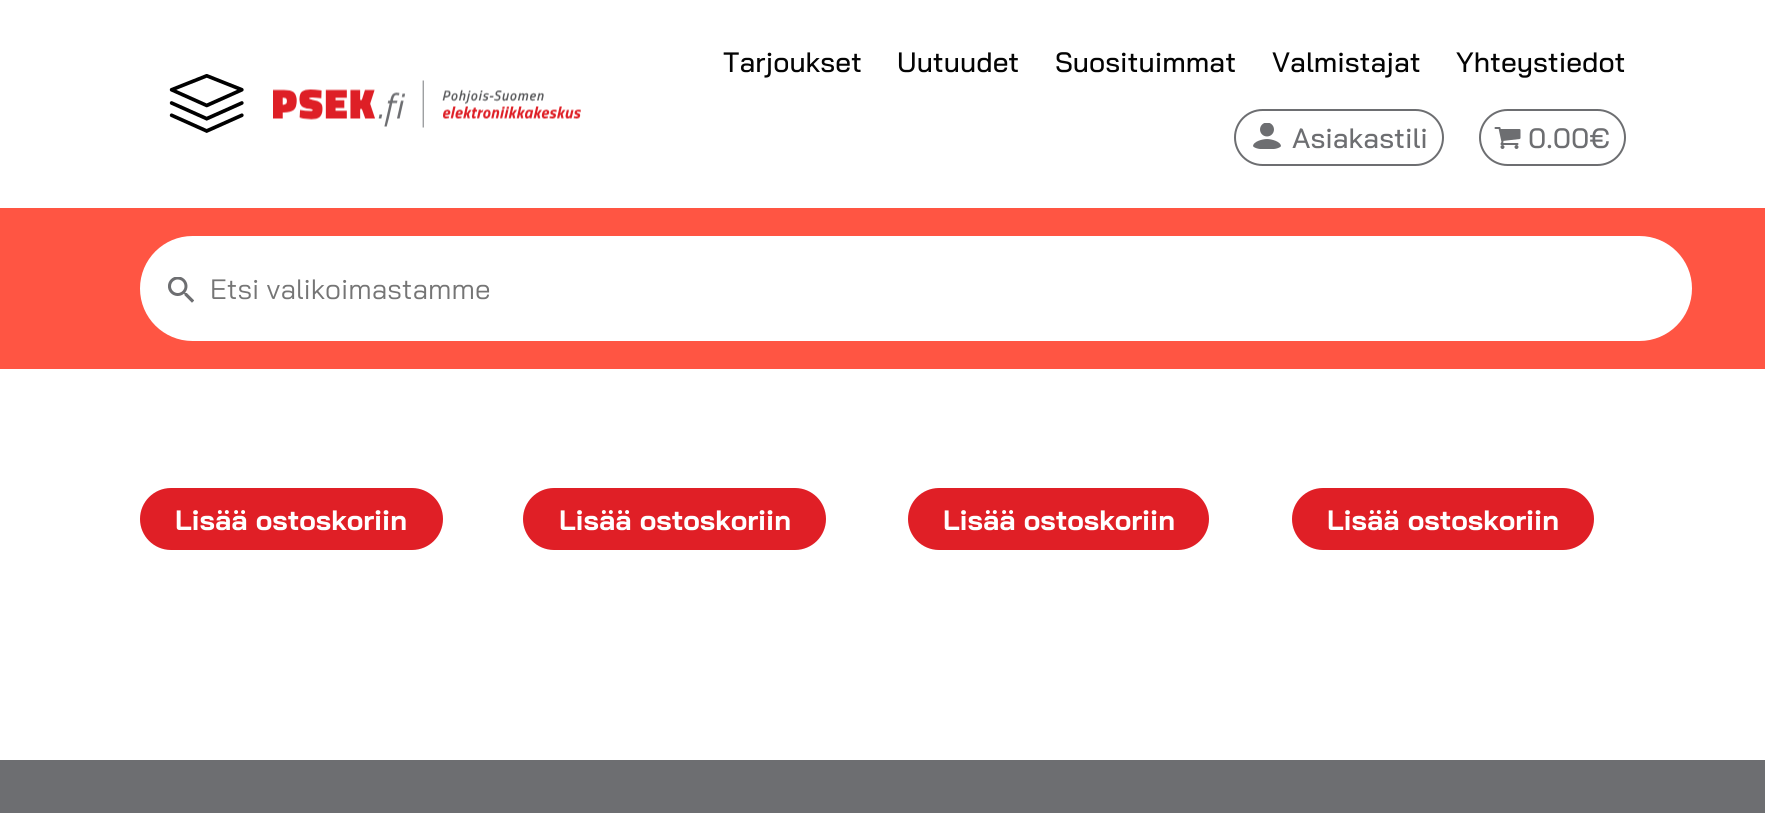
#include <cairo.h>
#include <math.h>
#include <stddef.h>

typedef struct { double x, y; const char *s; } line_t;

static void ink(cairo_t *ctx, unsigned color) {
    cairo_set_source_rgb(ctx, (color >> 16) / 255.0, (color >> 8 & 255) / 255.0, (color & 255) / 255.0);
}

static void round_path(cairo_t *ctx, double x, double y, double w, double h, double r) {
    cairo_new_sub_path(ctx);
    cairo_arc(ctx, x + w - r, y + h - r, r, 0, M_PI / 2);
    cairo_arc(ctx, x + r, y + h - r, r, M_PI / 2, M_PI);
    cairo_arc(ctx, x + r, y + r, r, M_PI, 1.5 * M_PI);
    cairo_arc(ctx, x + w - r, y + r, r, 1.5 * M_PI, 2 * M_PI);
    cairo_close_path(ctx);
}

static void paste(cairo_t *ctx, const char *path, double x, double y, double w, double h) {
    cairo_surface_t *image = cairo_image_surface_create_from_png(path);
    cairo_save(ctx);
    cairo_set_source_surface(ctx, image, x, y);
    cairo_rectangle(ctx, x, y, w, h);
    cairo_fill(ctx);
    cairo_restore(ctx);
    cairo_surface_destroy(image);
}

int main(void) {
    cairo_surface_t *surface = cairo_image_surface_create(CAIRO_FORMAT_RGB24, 1765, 813);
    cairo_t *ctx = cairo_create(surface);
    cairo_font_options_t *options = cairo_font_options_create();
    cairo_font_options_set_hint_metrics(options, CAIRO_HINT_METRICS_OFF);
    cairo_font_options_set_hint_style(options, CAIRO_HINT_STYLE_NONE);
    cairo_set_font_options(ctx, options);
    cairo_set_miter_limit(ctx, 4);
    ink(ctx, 0xFFFFFF);
    cairo_paint(ctx);
    paste(ctx, "media/1.png", 169, 74, 75, 59);
    paste(ctx, "media/2.png", 273, 80, 308, 48);
    cairo_select_font_face(ctx, "Bai Jamjuree Medium", CAIRO_FONT_SLANT_NORMAL, CAIRO_FONT_WEIGHT_NORMAL);
    cairo_set_font_size(ctx, 28);
    ink(ctx, 0x040404);
    {
        static const line_t items[] = {
            {723, 72, "Tarjoukset"},
            {897, 72, "Uutuudet"},
            {1055, 72, "Suosituimmat"},
            {1272, 72, "Valmistajat"},
            {1456, 72, "Yhteystiedot"},
        };
        for (size_t i = 0; i < sizeof items / sizeof *items; i++) {
            cairo_move_to(ctx, items[i].x, items[i].y);
            cairo_show_text(ctx, items[i].s);
        }
    }
    round_path(ctx, 1235, 110, 208, 55, 27.5);
    ink(ctx, 0x6D6E71);
    cairo_stroke(ctx);
    paste(ctx, "media/3.png", 1253, 123, 28, 26);
    cairo_move_to(ctx, 1292, 148);
    cairo_show_text(ctx, "Asiakastili");
    round_path(ctx, 1480, 110, 145, 55, 27.5);
    cairo_stroke(ctx);
    paste(ctx, "media/4.png", 1494, 127, 27, 22);
    cairo_move_to(ctx, 1528, 148);
    cairo_show_text(ctx, "0.00€");
    ink(ctx, 0xFF5543);
    cairo_rectangle(ctx, 0, 208, 1765, 161);
    cairo_fill(ctx);
    ink(ctx, 0xFFFFFF);
    round_path(ctx, 140, 236, 1552, 105, 52.5);
    cairo_fill(ctx);
    paste(ctx, "media/5.png", 168, 277, 26, 26);
    cairo_select_font_face(ctx, "Bai Jamjuree", CAIRO_FONT_SLANT_NORMAL, CAIRO_FONT_WEIGHT_NORMAL);
    ink(ctx, 0x757575);
    cairo_move_to(ctx, 210, 299);
    cairo_show_text(ctx, "Etsi valikoimastamme");
    ink(ctx, 0xE01F26);
    round_path(ctx, 140, 488, 303, 62, 31);
    cairo_fill(ctx);
    cairo_select_font_face(ctx, "Bai Jamjuree", CAIRO_FONT_SLANT_NORMAL, CAIRO_FONT_WEIGHT_BOLD);
    ink(ctx, 0xFFFFFF);
    cairo_move_to(ctx, 175, 530);
    cairo_show_text(ctx, "Lisää ostoskoriin");
    ink(ctx, 0xE01F26);
    round_path(ctx, 523, 488, 303, 62, 31);
    cairo_fill(ctx);
    ink(ctx, 0xFFFFFF);
    cairo_move_to(ctx, 559, 530);
    cairo_show_text(ctx, "Lisää ostoskoriin");
    ink(ctx, 0xE01F26);
    round_path(ctx, 908, 488, 301, 62, 31);
    cairo_fill(ctx);
    ink(ctx, 0xFFFFFF);
    cairo_move_to(ctx, 943, 530);
    cairo_show_text(ctx, "Lisää ostoskoriin");
    ink(ctx, 0xE01F26);
    round_path(ctx, 1292, 488, 302, 62, 31);
    cairo_fill(ctx);
    ink(ctx, 0xFFFFFF);
    cairo_move_to(ctx, 1327, 530);
    cairo_show_text(ctx, "Lisää ostoskoriin");
    ink(ctx, 0x6D6E71);
    cairo_rectangle(ctx, 0, 760, 1765, 53);
    cairo_fill(ctx);
    cairo_surface_write_to_png(surface, "image.png");
    cairo_font_options_destroy(options);
    cairo_destroy(ctx);
    cairo_surface_destroy(surface);
    return 0;
}
